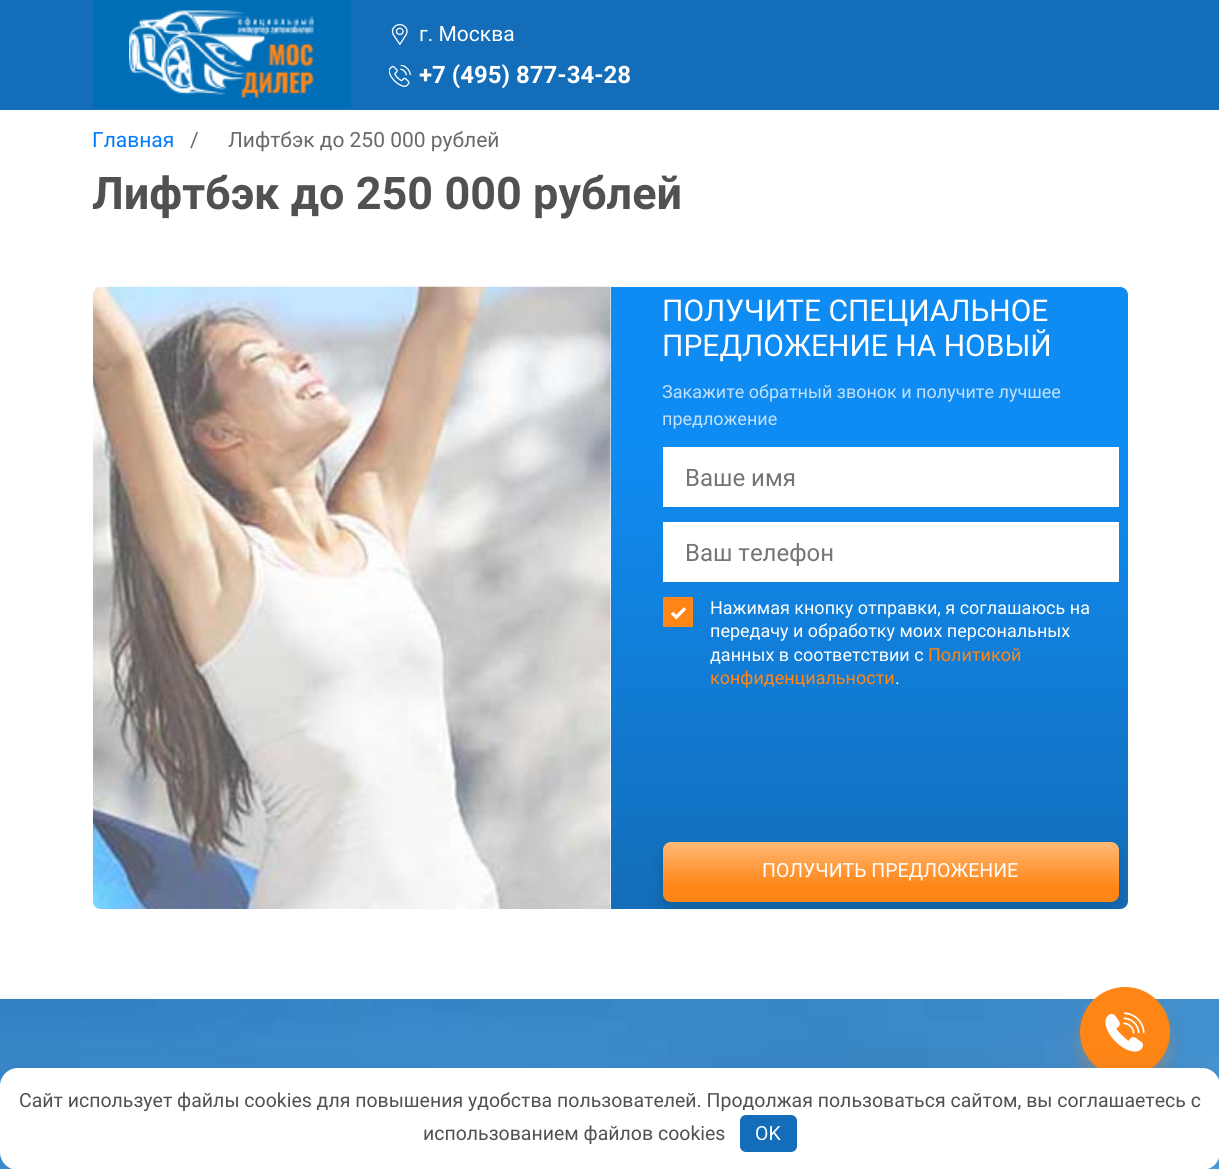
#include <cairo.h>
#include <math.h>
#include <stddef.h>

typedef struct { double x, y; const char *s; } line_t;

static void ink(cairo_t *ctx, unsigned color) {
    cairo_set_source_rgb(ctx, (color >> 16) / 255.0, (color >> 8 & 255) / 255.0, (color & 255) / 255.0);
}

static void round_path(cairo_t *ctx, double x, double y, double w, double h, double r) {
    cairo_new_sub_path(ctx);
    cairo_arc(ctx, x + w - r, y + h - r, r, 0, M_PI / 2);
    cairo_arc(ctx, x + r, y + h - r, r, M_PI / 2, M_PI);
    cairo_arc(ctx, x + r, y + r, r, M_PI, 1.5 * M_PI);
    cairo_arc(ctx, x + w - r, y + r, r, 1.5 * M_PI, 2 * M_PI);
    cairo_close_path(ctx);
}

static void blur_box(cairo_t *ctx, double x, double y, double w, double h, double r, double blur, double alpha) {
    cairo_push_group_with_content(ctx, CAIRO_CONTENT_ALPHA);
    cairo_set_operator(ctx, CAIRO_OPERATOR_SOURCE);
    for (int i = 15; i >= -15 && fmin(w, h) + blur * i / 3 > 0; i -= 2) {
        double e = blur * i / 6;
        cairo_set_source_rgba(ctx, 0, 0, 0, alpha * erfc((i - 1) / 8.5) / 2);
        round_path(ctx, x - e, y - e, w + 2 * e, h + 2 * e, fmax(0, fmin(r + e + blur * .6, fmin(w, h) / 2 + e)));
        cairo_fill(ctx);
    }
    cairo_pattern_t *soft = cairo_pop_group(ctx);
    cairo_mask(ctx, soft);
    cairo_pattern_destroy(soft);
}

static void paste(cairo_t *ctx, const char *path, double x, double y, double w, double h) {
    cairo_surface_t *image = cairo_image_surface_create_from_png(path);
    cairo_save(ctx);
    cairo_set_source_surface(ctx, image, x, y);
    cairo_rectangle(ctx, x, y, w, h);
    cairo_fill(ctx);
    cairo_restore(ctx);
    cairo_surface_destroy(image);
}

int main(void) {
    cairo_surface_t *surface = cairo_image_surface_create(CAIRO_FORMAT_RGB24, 1219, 1169);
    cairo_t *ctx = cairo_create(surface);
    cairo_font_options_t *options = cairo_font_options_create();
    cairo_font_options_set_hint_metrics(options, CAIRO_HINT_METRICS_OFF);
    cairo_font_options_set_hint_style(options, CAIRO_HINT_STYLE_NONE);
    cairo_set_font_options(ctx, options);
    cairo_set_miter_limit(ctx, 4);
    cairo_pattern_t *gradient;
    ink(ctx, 0xFFFFFF);
    cairo_paint(ctx);
    ink(ctx, 0x136DB8);
    cairo_rectangle(ctx, 0, 0, 1219, 110);
    cairo_fill(ctx);
    ink(ctx, 0x006EB6);
    cairo_rectangle(ctx, 93, 0, 258, 108);
    cairo_fill(ctx);
    paste(ctx, "media/1.png", 129, 10, 185, 88);
    paste(ctx, "media/2.png", 391, 24, 17, 21);
    cairo_select_font_face(ctx, "Roboto", CAIRO_FONT_SLANT_NORMAL, CAIRO_FONT_WEIGHT_NORMAL);
    cairo_set_font_size(ctx, 21);
    ink(ctx, 0xFFFFFF);
    cairo_move_to(ctx, 419, 41);
    cairo_show_text(ctx, "г. Москва");
    paste(ctx, "media/3.png", 389, 65, 22, 22);
    cairo_select_font_face(ctx, "Roboto", CAIRO_FONT_SLANT_NORMAL, CAIRO_FONT_WEIGHT_BOLD);
    cairo_set_font_size(ctx, 24);
    cairo_move_to(ctx, 419, 83);
    cairo_show_text(ctx, "+7 (495) 877-34-28");
    cairo_select_font_face(ctx, "Roboto", CAIRO_FONT_SLANT_NORMAL, CAIRO_FONT_WEIGHT_NORMAL);
    cairo_set_font_size(ctx, 21);
    ink(ctx, 0x007BFF);
    cairo_move_to(ctx, 92, 147);
    cairo_show_text(ctx, "Главная");
    ink(ctx, 0x696969);
    cairo_move_to(ctx, 190, 147);
    cairo_show_text(ctx, "/");
    cairo_move_to(ctx, 228, 147);
    cairo_show_text(ctx, "Лифтбэк до 250 000 рублей");
    cairo_select_font_face(ctx, "Roboto", CAIRO_FONT_SLANT_NORMAL, CAIRO_FONT_WEIGHT_BOLD);
    cairo_set_font_size(ctx, 45);
    ink(ctx, 0x515151);
    cairo_move_to(ctx, 92, 209);
    cairo_show_text(ctx, "Лифтбэк до 250 000 рублей");
    paste(ctx, "media/4.png", 93, 286, 518, 623);
    gradient = cairo_pattern_create_linear(891, 286, 891, 909);
    cairo_pattern_add_color_stop_rgba(gradient, 0.25, 0.059, 0.549, 0.953, 1);
    cairo_pattern_add_color_stop_rgba(gradient, 1, 0.075, 0.427, 0.722, 1);
    cairo_set_source(ctx, gradient);
    cairo_pattern_destroy(gradient);
    cairo_new_path(ctx);
    cairo_move_to(ctx, 611, 287);
    cairo_line_to(ctx, 1120, 287);
    cairo_curve_to(ctx, 1124.5, 287, 1128, 290.5, 1128, 295);
    cairo_line_to(ctx, 1128, 901);
    cairo_curve_to(ctx, 1128, 905.5, 1124.5, 909, 1120, 909);
    cairo_line_to(ctx, 611, 909);
    cairo_close_path(ctx);
    cairo_fill(ctx);
    cairo_select_font_face(ctx, "Roboto", CAIRO_FONT_SLANT_NORMAL, CAIRO_FONT_WEIGHT_NORMAL);
    cairo_set_font_size(ctx, 30);
    ink(ctx, 0xFFFFFF);
    cairo_move_to(ctx, 662, 321);
    cairo_show_text(ctx, "ПОЛУЧИТЕ СПЕЦИАЛЬНОЕ");
    cairo_move_to(ctx, 662, 356);
    cairo_show_text(ctx, "ПРЕДЛОЖЕНИЕ НА НОВЫЙ");
    cairo_set_font_size(ctx, 18);
    ink(ctx, 0xC1E1FC);
    cairo_move_to(ctx, 662, 398);
    cairo_show_text(ctx, "Закажите обратный звонок и получите лучшее");
    cairo_move_to(ctx, 662, 425);
    cairo_show_text(ctx, "предложение");
    ink(ctx, 0xFFFFFF);
    cairo_rectangle(ctx, 663, 447, 456, 60);
    cairo_fill(ctx);
    cairo_set_font_size(ctx, 24);
    ink(ctx, 0x757575);
    cairo_move_to(ctx, 685, 486);
    cairo_show_text(ctx, "Ваше имя");
    ink(ctx, 0xFFFFFF);
    cairo_rectangle(ctx, 663, 522, 456, 60);
    cairo_fill(ctx);
    ink(ctx, 0x757575);
    cairo_move_to(ctx, 685, 561);
    cairo_show_text(ctx, "Ваш телефон");
    ink(ctx, 0xFF8616);
    cairo_rectangle(ctx, 663, 597, 30, 30);
    cairo_fill(ctx);
    paste(ctx, "media/5.png", 670, 607, 17, 13);
    cairo_set_font_size(ctx, 18);
    ink(ctx, 0xFFFFFF);
    {
        static const line_t items[] = {
            {710, 614, "Нажимая кнопку отправки, я соглашаюсь на"},
            {710, 637, "передачу и обработку моих персональных"},
            {710, 661, "данных в соответствии с"},
        };
        for (size_t i = 0; i < sizeof items / sizeof *items; i++) {
            cairo_move_to(ctx, items[i].x, items[i].y);
            cairo_show_text(ctx, items[i].s);
        }
    }
    ink(ctx, 0xFF8616);
    cairo_move_to(ctx, 928, 661);
    cairo_show_text(ctx, "Политикой");
    cairo_move_to(ctx, 710, 684);
    cairo_show_text(ctx, "конфиденциальности");
    ink(ctx, 0xFFFFFF);
    cairo_move_to(ctx, 895, 684);
    cairo_show_text(ctx, ".");
    cairo_save(ctx);
    round_path(ctx, 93, 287, 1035, 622, 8);
    cairo_clip(ctx);
    ink(ctx, 0x000000);
    blur_box(ctx, 663, 848, 456, 60, 8, 7.5, 0.15);
    cairo_restore(ctx);
    gradient = cairo_pattern_create_linear(891, 842, 891, 902);
    cairo_pattern_add_color_stop_rgba(gradient, 0, 1, 0.725, 0.467, 1);
    cairo_pattern_add_color_stop_rgba(gradient, 0.74, 1, 0.525, 0.086, 1);
    cairo_set_source(ctx, gradient);
    cairo_pattern_destroy(gradient);
    round_path(ctx, 663, 842, 456, 60, 8);
    cairo_fill(ctx);
    cairo_set_font_size(ctx, 19.5);
    ink(ctx, 0xFFFFFF);
    cairo_move_to(ctx, 762, 877);
    cairo_show_text(ctx, "ПОЛУЧИТЬ ПРЕДЛОЖЕНИЕ");
    paste(ctx, "media/7.png", 0, 999, 1219, 170);
    ink(ctx, 0xFF8616);
    blur_box(ctx, 1080, 999, 90, 90, 45, 7.5, 0.3);
    ink(ctx, 0xFF8616);
    cairo_arc(ctx, 1125, 1032, 43.5, 0, 2 * M_PI);
    cairo_fill_preserve(ctx);
    cairo_set_line_width(ctx, 3);
    cairo_stroke(ctx);
    paste(ctx, "media/6.png", 1105, 1012, 40, 40);
    ink(ctx, 0x292C38);
    blur_box(ctx, 8, 1080, 1204, 87, 11, 15, 0.2);
    ink(ctx, 0xFFFFFF);
    round_path(ctx, 0, 1068, 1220, 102, 18);
    cairo_fill(ctx);
    ink(ctx, 0x515151);
    cairo_move_to(ctx, 19, 1107);
    cairo_show_text(ctx, "Сайт использует файлы cookies для повышения удобства пользователей. Продолжая пользоваться сайтом, вы соглашаетесь с");
    cairo_move_to(ctx, 423, 1140);
    cairo_show_text(ctx, "использованием файлов cookies");
    ink(ctx, 0x136DB8);
    round_path(ctx, 740, 1115, 57, 37, 6);
    cairo_fill(ctx);
    ink(ctx, 0xFFFFFF);
    cairo_move_to(ctx, 755, 1140);
    cairo_show_text(ctx, "OK");
    cairo_surface_write_to_png(surface, "image.png");
    cairo_font_options_destroy(options);
    cairo_destroy(ctx);
    cairo_surface_destroy(surface);
    return 0;
}
